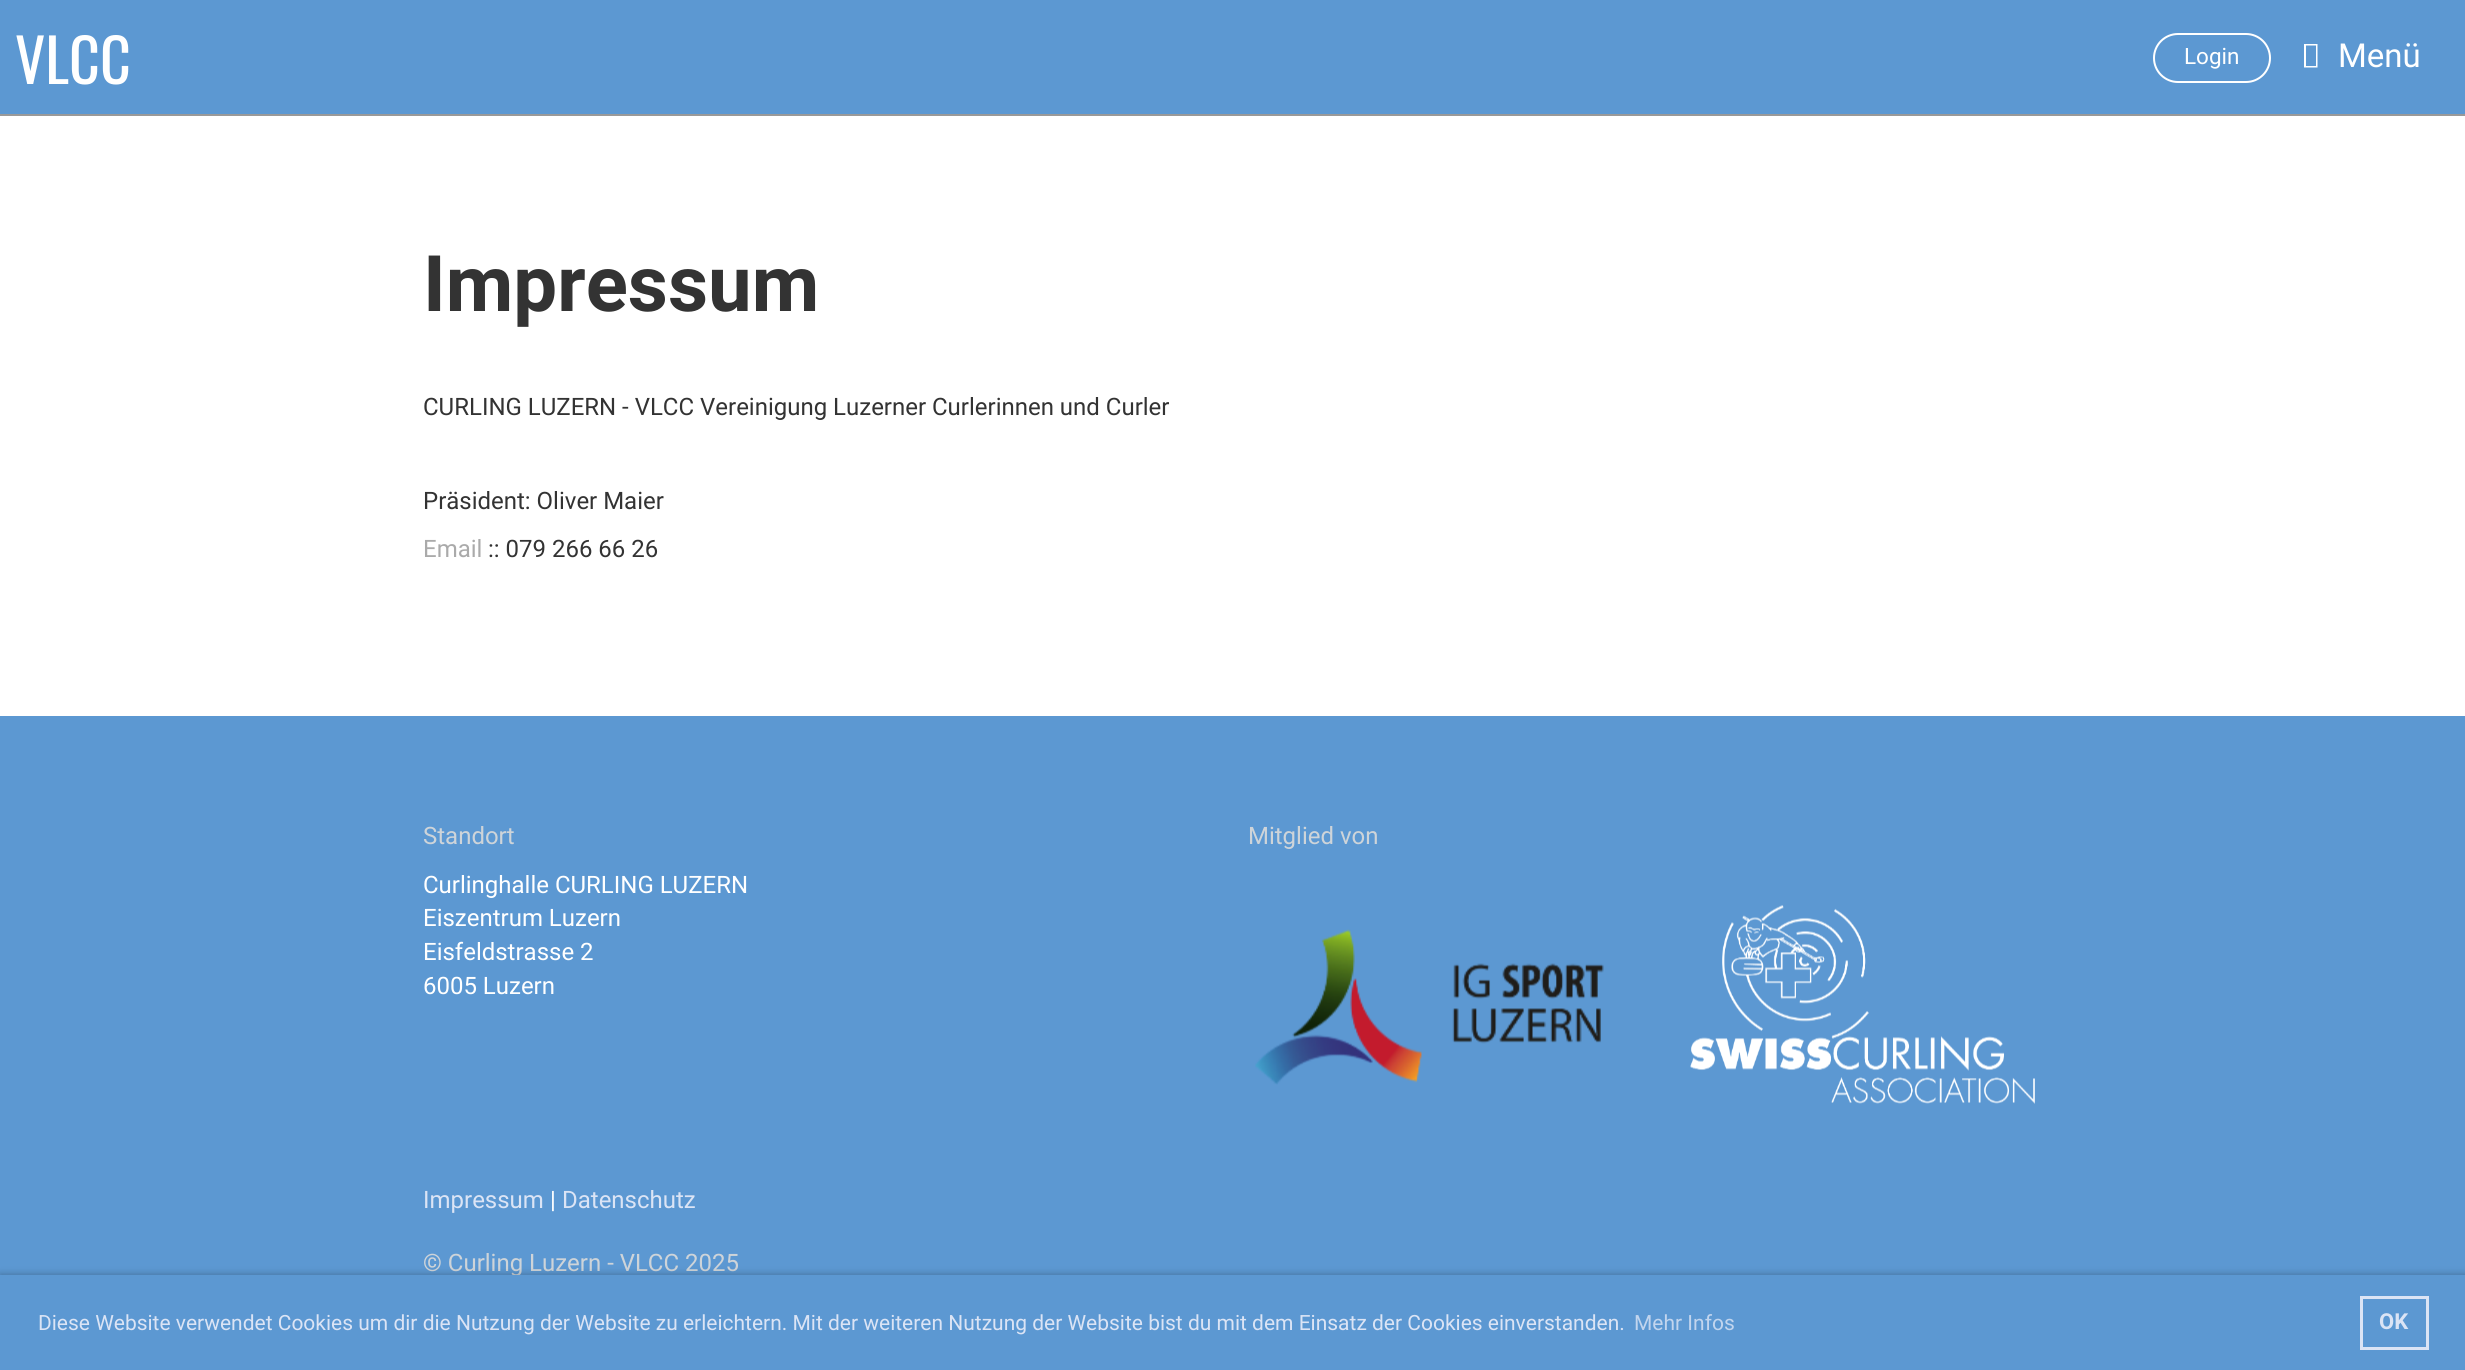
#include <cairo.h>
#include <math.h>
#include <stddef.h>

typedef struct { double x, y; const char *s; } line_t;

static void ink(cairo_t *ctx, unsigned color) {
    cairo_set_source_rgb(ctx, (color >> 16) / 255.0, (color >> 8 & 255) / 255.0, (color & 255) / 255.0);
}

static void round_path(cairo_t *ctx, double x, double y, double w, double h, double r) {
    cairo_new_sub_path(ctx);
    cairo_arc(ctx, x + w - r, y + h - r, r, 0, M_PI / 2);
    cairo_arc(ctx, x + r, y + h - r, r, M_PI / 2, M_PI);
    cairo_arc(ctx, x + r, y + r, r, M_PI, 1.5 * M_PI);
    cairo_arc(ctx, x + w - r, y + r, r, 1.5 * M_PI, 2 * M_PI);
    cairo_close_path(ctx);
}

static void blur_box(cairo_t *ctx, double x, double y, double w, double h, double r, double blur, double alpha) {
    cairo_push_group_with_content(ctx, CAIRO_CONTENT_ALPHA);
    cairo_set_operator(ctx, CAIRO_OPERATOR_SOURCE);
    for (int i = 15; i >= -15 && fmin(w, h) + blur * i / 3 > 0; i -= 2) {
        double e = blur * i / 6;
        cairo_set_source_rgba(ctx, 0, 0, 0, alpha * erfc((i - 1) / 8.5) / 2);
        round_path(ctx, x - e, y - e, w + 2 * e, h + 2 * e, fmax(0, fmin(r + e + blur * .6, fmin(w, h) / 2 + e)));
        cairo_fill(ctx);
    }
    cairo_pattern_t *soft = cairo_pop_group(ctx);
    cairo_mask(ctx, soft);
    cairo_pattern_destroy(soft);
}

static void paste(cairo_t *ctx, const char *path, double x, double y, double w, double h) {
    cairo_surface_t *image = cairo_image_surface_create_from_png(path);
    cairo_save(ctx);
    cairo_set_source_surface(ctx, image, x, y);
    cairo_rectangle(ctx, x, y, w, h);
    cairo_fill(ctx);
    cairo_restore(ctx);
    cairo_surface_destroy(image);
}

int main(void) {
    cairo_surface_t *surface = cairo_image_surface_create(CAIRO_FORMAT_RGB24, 2465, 1370);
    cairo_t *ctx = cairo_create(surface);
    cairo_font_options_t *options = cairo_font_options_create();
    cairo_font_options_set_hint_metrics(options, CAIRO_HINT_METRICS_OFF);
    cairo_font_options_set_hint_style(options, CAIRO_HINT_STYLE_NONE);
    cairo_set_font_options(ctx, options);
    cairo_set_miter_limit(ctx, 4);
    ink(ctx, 0xFFFFFF);
    cairo_paint(ctx);
    ink(ctx, 0x5C98D2);
    cairo_rectangle(ctx, 0, 0, 2465, 114);
    cairo_fill(ctx);
    ink(ctx, 0x999999);
    cairo_rectangle(ctx, 0, 114, 2465, 2);
    cairo_fill(ctx);
    cairo_select_font_face(ctx, "Oswald", CAIRO_FONT_SLANT_NORMAL, CAIRO_FONT_WEIGHT_NORMAL);
    cairo_set_font_size(ctx, 60);
    ink(ctx, 0xFFFFFF);
    cairo_move_to(ctx, 15, 84);
    cairo_show_text(ctx, "VLCC");
    round_path(ctx, 2154, 34, 116, 48, 24);
    cairo_stroke(ctx);
    cairo_select_font_face(ctx, "Roboto", CAIRO_FONT_SLANT_NORMAL, CAIRO_FONT_WEIGHT_NORMAL);
    cairo_set_font_size(ctx, 22.5);
    cairo_move_to(ctx, 2184, 64);
    cairo_show_text(ctx, "Login");
    cairo_new_path(ctx);
    cairo_move_to(ctx, 2304, 67.5);
    cairo_line_to(ctx, 2304, 44);
    cairo_line_to(ctx, 2317.5, 44);
    cairo_line_to(ctx, 2317.5, 67.5);
    cairo_close_path(ctx);
    cairo_move_to(ctx, 2306, 66);
    cairo_line_to(ctx, 2316, 66);
    cairo_line_to(ctx, 2316, 45.5);
    cairo_line_to(ctx, 2306, 45.5);
    cairo_close_path(ctx);
    cairo_fill(ctx);
    cairo_set_font_size(ctx, 33);
    cairo_move_to(ctx, 2338, 67);
    cairo_show_text(ctx, "Menü");
    cairo_select_font_face(ctx, "Roboto", CAIRO_FONT_SLANT_NORMAL, CAIRO_FONT_WEIGHT_BOLD);
    cairo_set_font_size(ctx, 78);
    ink(ctx, 0x333333);
    cairo_move_to(ctx, 423, 311);
    cairo_show_text(ctx, "Impressum");
    cairo_select_font_face(ctx, "Roboto", CAIRO_FONT_SLANT_NORMAL, CAIRO_FONT_WEIGHT_NORMAL);
    cairo_set_font_size(ctx, 24);
    cairo_move_to(ctx, 423, 415);
    cairo_show_text(ctx, "CURLING LUZERN - VLCC Vereinigung Luzerner Curlerinnen und Curler");
    cairo_move_to(ctx, 423, 509);
    cairo_show_text(ctx, "Präsident: Oliver Maier");
    ink(ctx, 0xAAAAAA);
    cairo_move_to(ctx, 423, 557);
    cairo_show_text(ctx, "Email");
    ink(ctx, 0x333333);
    cairo_move_to(ctx, 488, 557);
    cairo_show_text(ctx, ":: 079 266 66 26");
    ink(ctx, 0x5C98D2);
    cairo_rectangle(ctx, 0, 716, 2465, 559);
    cairo_fill(ctx);
    ink(ctx, 0xCED4D9);
    cairo_move_to(ctx, 423, 844);
    cairo_show_text(ctx, "Standort");
    ink(ctx, 0xFFFFFF);
    {
        static const line_t items[] = {
            {423, 893, "Curlinghalle CURLING LUZERN"},
            {423, 926, "Eiszentrum Luzern"},
            {423, 960, "Eisfeldstrasse 2"},
            {423, 994, "6005 Luzern"},
        };
        for (size_t i = 0; i < sizeof items / sizeof *items; i++) {
            cairo_move_to(ctx, items[i].x, items[i].y);
            cairo_show_text(ctx, items[i].s);
        }
    }
    ink(ctx, 0xCED4D9);
    cairo_move_to(ctx, 1248, 844);
    cairo_show_text(ctx, "Mitglied von");
    paste(ctx, "media/1.png", 1255, 929, 349, 156);
    paste(ctx, "media/2.png", 1690, 905, 345, 199);
    ink(ctx, 0xDBE4F5);
    cairo_move_to(ctx, 423, 1208);
    cairo_show_text(ctx, "Impressum");
    ink(ctx, 0xFFFFFF);
    cairo_move_to(ctx, 550, 1208);
    cairo_show_text(ctx, "|");
    ink(ctx, 0xDBE4F5);
    cairo_move_to(ctx, 562, 1208);
    cairo_show_text(ctx, "Datenschutz");
    ink(ctx, 0xCED4D9);
    cairo_move_to(ctx, 423, 1271);
    cairo_show_text(ctx, "© Curling Luzern - VLCC 2025");
    ink(ctx, 0x000000);
    blur_box(ctx, 0, 1275, 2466, 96, 0, 4, 0.3);
    ink(ctx, 0x5C98D2);
    cairo_rectangle(ctx, 0, 1275, 2465, 95);
    cairo_fill(ctx);
    cairo_set_font_size(ctx, 21);
    ink(ctx, 0xDBE4F5);
    cairo_move_to(ctx, 38, 1330);
    cairo_show_text(ctx, "Diese Website verwendet Cookies um dir die Nutzung der Website zu erleichtern. Mit der weiteren Nutzung der Website bist du mit dem Einsatz der Cookies einverstanden.");
    ink(ctx, 0xC2D5EE);
    cairo_move_to(ctx, 1634, 1330);
    cairo_show_text(ctx, "Mehr Infos");
    cairo_rectangle(ctx, 2361.5, 1297.5, 66, 51);
    ink(ctx, 0xDBE4F5);
    cairo_set_line_width(ctx, 3);
    cairo_stroke(ctx);
    cairo_select_font_face(ctx, "Roboto", CAIRO_FONT_SLANT_NORMAL, CAIRO_FONT_WEIGHT_BOLD);
    cairo_set_font_size(ctx, 22);
    cairo_move_to(ctx, 2379, 1329);
    cairo_show_text(ctx, "OK");
    cairo_surface_write_to_png(surface, "image.png");
    cairo_font_options_destroy(options);
    cairo_destroy(ctx);
    cairo_surface_destroy(surface);
    return 0;
}
